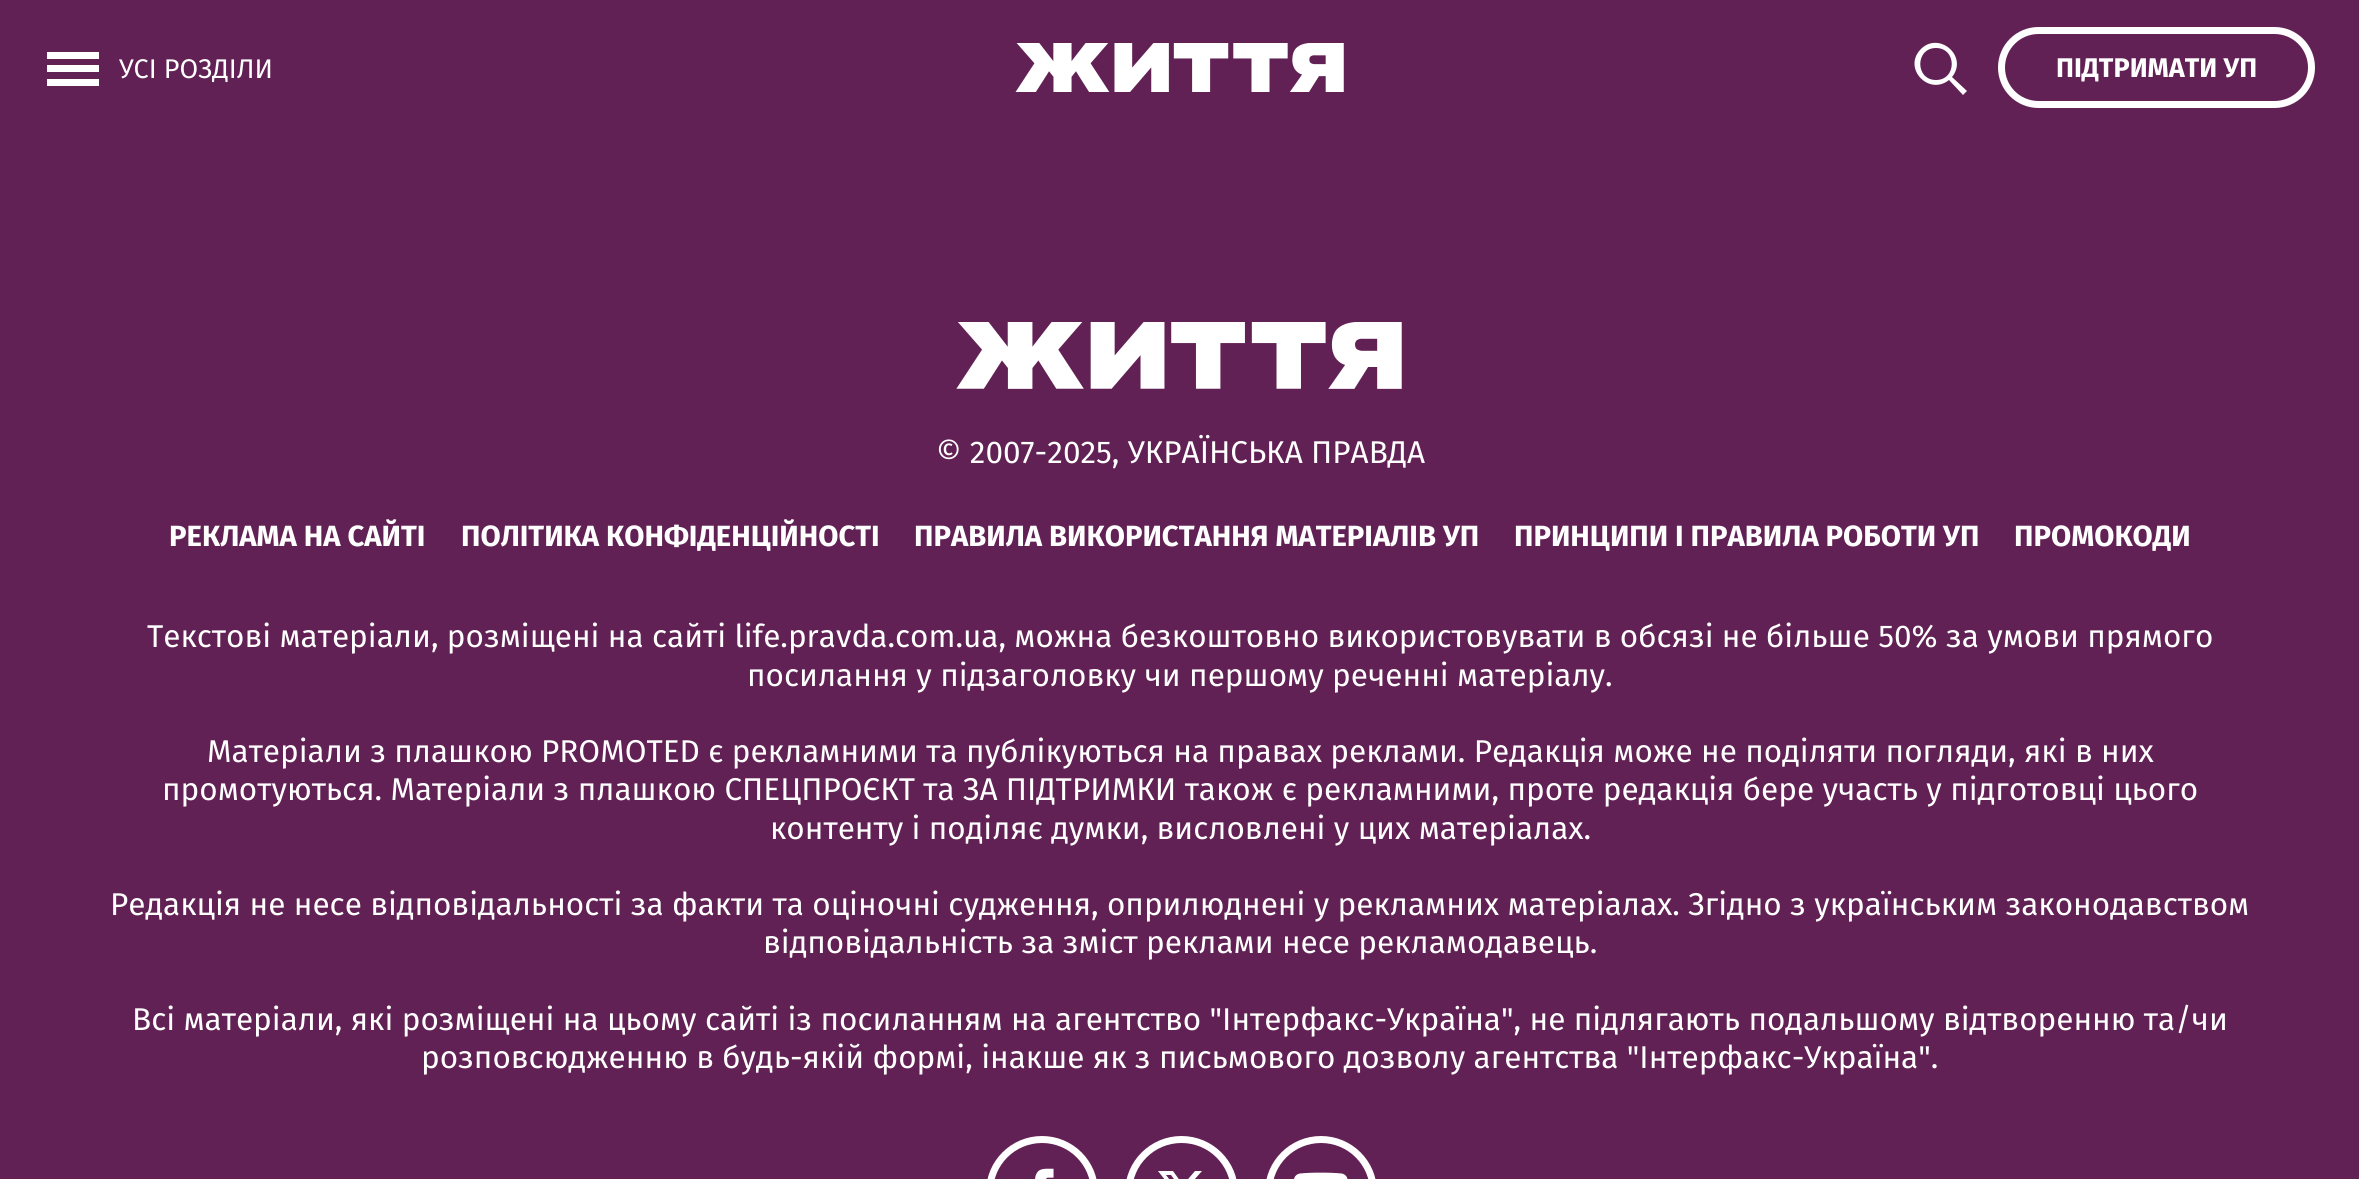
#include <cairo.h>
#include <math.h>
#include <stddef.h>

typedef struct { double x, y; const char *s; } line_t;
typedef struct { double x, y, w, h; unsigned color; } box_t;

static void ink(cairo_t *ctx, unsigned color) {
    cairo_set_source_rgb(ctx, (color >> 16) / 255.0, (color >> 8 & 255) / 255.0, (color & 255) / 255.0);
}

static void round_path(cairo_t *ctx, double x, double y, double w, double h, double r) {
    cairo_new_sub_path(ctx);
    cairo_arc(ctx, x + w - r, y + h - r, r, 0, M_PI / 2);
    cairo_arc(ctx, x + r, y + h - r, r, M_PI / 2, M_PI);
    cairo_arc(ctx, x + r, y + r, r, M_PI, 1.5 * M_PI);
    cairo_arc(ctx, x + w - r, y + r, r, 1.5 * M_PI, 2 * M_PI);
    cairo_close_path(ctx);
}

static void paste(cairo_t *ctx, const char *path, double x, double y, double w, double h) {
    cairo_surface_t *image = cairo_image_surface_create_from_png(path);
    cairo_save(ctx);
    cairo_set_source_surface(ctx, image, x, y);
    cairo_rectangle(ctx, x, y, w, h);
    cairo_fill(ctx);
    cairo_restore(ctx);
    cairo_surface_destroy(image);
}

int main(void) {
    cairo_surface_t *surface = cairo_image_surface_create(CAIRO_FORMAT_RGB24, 2359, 1179);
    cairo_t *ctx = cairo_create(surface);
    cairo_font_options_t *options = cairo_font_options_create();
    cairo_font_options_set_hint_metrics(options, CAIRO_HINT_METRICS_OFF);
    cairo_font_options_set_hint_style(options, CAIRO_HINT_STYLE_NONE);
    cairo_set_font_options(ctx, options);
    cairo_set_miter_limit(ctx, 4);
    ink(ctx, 0x622154);
    cairo_paint(ctx);
    {
        static const box_t items[] = {
            {47, 52, 52, 7, 0xFFFFFF},
            {47, 65, 52, 7, 0xFFFFFF},
            {47, 79, 52, 7, 0xFFFFFF},
        };
        for (size_t i = 0; i < sizeof items / sizeof *items; i++) {
            ink(ctx, items[i].color);
            cairo_rectangle(ctx, items[i].x, items[i].y, items[i].w, items[i].h);
            cairo_fill(ctx);
        }
    }
    cairo_select_font_face(ctx, "Fira Sans", CAIRO_FONT_SLANT_NORMAL, CAIRO_FONT_WEIGHT_NORMAL);
    cairo_set_font_size(ctx, 27);
    cairo_move_to(ctx, 119, 78);
    cairo_show_text(ctx, "УСІ РОЗДІЛИ");
    paste(ctx, "media/1.png", 1015, 43, 329, 49);
    cairo_new_path(ctx);
    cairo_move_to(ctx, 1949, 80);
    cairo_curve_to(ctx, 1929, 96, 1903, 69, 1920, 50);
    cairo_curve_to(ctx, 1938, 30, 1969, 56, 1952, 77);
    cairo_line_to(ctx, 1967, 91);
    cairo_line_to(ctx, 1963, 95);
    cairo_close_path(ctx);
    cairo_move_to(ctx, 1936, 80);
    cairo_curve_to(ctx, 1957, 80, 1957, 48, 1936, 48);
    cairo_curve_to(ctx, 1915, 48, 1915, 80, 1936, 80);
    cairo_close_path(ctx);
    cairo_fill(ctx);
    round_path(ctx, 2001.5, 30.5, 310, 74, 37);
    cairo_set_line_width(ctx, 7);
    cairo_stroke(ctx);
    cairo_select_font_face(ctx, "Fira Sans", CAIRO_FONT_SLANT_NORMAL, CAIRO_FONT_WEIGHT_BOLD);
    cairo_move_to(ctx, 2056, 77);
    cairo_show_text(ctx, "ПІДТРИМАТИ УП");
    paste(ctx, "media/2.png", 956, 322, 446, 67);
    cairo_select_font_face(ctx, "Fira Sans", CAIRO_FONT_SLANT_NORMAL, CAIRO_FONT_WEIGHT_NORMAL);
    cairo_set_font_size(ctx, 31.5);
    cairo_move_to(ctx, 936, 463);
    cairo_show_text(ctx, "© 2007-2025, УКРАЇНСЬКА ПРАВДА");
    cairo_select_font_face(ctx, "Fira Sans", CAIRO_FONT_SLANT_NORMAL, CAIRO_FONT_WEIGHT_BOLD);
    cairo_set_font_size(ctx, 29.25);
    {
        static const line_t items[] = {
            {169, 546, "РЕКЛАМА НА САЙТІ"},
            {461, 546, "ПОЛІТИКА КОНФІДЕНЦІЙНОСТІ"},
            {914, 546, "ПРАВИЛА ВИКОРИСТАННЯ МАТЕРІАЛІВ УП"},
            {1514, 546, "ПРИНЦИПИ І ПРАВИЛА РОБОТИ УП"},
            {2014, 546, "ПРОМОКОДИ"},
        };
        for (size_t i = 0; i < sizeof items / sizeof *items; i++) {
            cairo_move_to(ctx, items[i].x, items[i].y);
            cairo_show_text(ctx, items[i].s);
        }
    }
    cairo_select_font_face(ctx, "Fira Sans", CAIRO_FONT_SLANT_NORMAL, CAIRO_FONT_WEIGHT_NORMAL);
    cairo_set_font_size(ctx, 31.5);
    {
        static const line_t items[] = {
            {147, 647, "Текстові матеріали, розміщені на сайті life.pravda.com.ua, можна безкоштовно використовувати в обсязі не більше 50% за умови прямого"},
            {747, 686, "посилання у підзаголовку чи першому реченні матеріалу."},
            {207, 762, "Матеріали з плашкою PROMOTED є рекламними та публікуються на правах реклами. Редакція може не поділяти погляди, які в них"},
            {162, 800, "промотуються. Матеріали з плашкою СПЕЦПРОЄКТ та ЗА ПІДТРИМКИ також є рекламними, проте редакція бере участь у підготовці цього"},
            {770, 839, "контенту і поділяє думки, висловлені у цих матеріалах."},
            {110, 915, "Редакція не несе відповідальності за факти та оціночні судження, оприлюднені у рекламних матеріалах. Згідно з українським законодавством"},
            {763, 953, "відповідальність за зміст реклами несе рекламодавець."},
            {132, 1030, "Всі матеріали, які розміщені на цьому сайті із посиланням на агентство \"Інтерфакс-Україна\", не підлягають подальшому відтворенню та/чи"},
            {421, 1068, "розповсюдженню в будь-якій формі, інакше як з письмового дозволу агентства \"Інтерфакс-Україна\"."},
        };
        for (size_t i = 0; i < sizeof items / sizeof *items; i++) {
            cairo_move_to(ctx, items[i].x, items[i].y);
            cairo_show_text(ctx, items[i].s);
        }
    }
    round_path(ctx, 989.5, 1139.5, 105, 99, 52.5);
    cairo_stroke(ctx);
    paste(ctx, "media/3.png", 1035, 1168, 19, 11);
    round_path(ctx, 1128.5, 1139.5, 106, 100, 53);
    cairo_stroke(ctx);
    cairo_new_path(ctx);
    cairo_move_to(ctx, 1195, 1171);
    cairo_line_to(ctx, 1202, 1171);
    cairo_line_to(ctx, 1186, 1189);
    cairo_line_to(ctx, 1205, 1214);
    cairo_line_to(ctx, 1190, 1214);
    cairo_line_to(ctx, 1179, 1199);
    cairo_line_to(ctx, 1166, 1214);
    cairo_line_to(ctx, 1159, 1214);
    cairo_line_to(ctx, 1176, 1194);
    cairo_line_to(ctx, 1158, 1171);
    cairo_line_to(ctx, 1173, 1171);
    cairo_line_to(ctx, 1183, 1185);
    cairo_close_path(ctx);
    cairo_move_to(ctx, 1192, 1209);
    cairo_line_to(ctx, 1196, 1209);
    cairo_line_to(ctx, 1171, 1175);
    cairo_line_to(ctx, 1166, 1175);
    cairo_close_path(ctx);
    cairo_fill(ctx);
    round_path(ctx, 1268.5, 1139.5, 105, 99, 52.5);
    cairo_stroke(ctx);
    paste(ctx, "media/4.png", 1294, 1172, 54, 7);
    cairo_surface_write_to_png(surface, "image.png");
    cairo_font_options_destroy(options);
    cairo_destroy(ctx);
    cairo_surface_destroy(surface);
    return 0;
}
